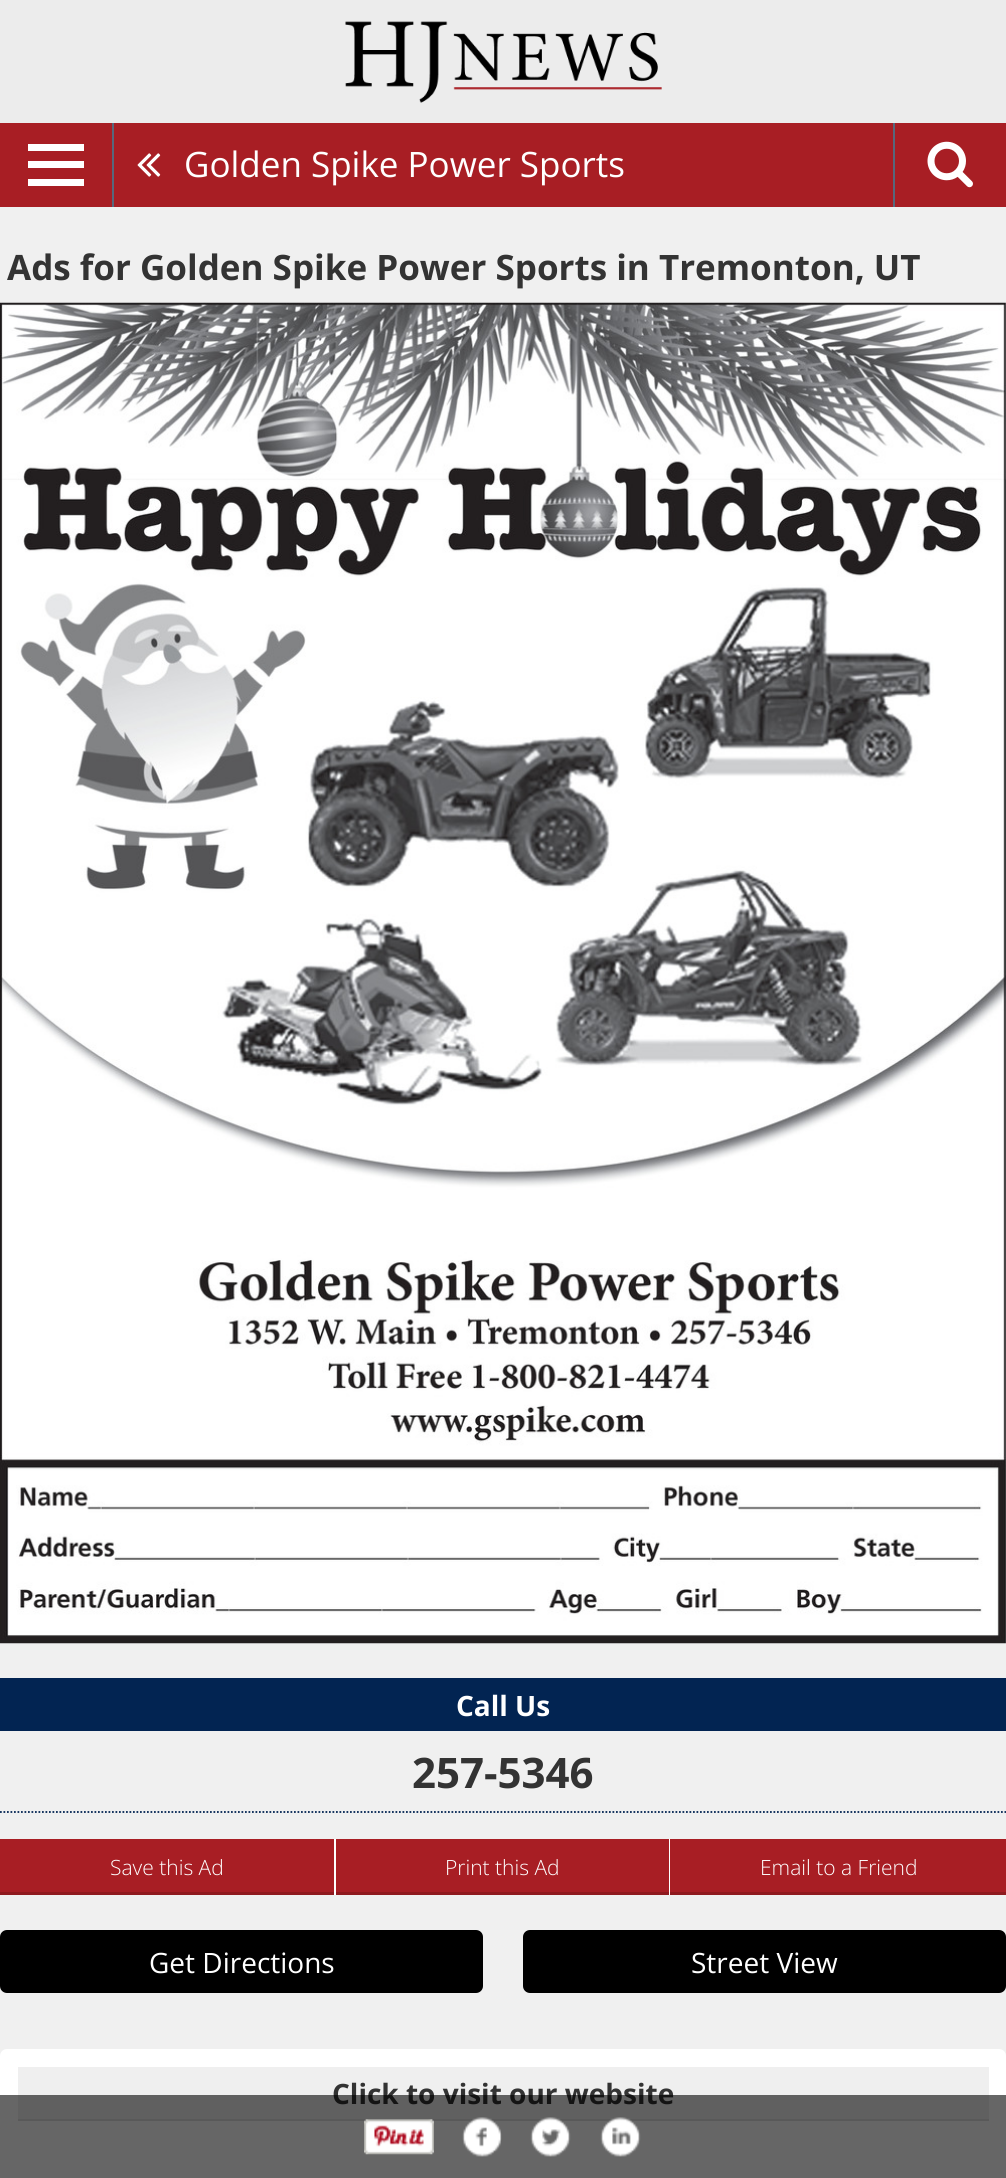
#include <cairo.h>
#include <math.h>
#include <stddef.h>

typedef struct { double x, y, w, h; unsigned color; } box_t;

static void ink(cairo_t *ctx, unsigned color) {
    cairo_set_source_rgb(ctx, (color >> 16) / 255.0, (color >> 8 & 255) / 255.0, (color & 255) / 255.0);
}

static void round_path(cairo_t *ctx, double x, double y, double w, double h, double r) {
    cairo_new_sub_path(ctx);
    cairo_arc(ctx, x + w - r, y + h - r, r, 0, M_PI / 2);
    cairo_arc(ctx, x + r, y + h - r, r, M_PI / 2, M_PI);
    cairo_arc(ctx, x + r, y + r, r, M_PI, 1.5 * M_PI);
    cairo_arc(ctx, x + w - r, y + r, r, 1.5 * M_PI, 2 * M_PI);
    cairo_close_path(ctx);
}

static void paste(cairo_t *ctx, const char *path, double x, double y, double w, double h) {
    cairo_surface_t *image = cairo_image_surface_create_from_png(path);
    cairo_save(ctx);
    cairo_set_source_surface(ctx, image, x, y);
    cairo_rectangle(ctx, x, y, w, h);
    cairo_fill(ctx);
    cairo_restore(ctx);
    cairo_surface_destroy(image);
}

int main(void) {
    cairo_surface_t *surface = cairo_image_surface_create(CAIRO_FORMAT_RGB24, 1006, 2178);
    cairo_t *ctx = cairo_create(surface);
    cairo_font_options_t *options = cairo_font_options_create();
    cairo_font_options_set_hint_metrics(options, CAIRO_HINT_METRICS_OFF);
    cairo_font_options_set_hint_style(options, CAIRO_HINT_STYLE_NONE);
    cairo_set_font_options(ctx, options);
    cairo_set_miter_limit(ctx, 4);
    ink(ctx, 0xF0F0F0);
    cairo_paint(ctx);
    ink(ctx, 0xECECEC);
    cairo_rectangle(ctx, 0, 0, 1006, 123);
    cairo_fill(ctx);
    paste(ctx, "media/1.png", 345, 21, 317, 82);
    {
        static const box_t items[] = {
            {0, 123, 1006, 84, 0xA81E24},
            {28, 144, 56, 7, 0xFFFFFF},
            {28, 161, 56, 7, 0xFFFFFF},
            {28, 179, 56, 7, 0xFFFFFF},
            {893, 123, 2, 84, 0x57677C},
            {112, 123, 2, 84, 0x57677C},
        };
        for (size_t i = 0; i < sizeof items / sizeof *items; i++) {
            ink(ctx, items[i].color);
            cairo_rectangle(ctx, items[i].x, items[i].y, items[i].w, items[i].h);
            cairo_fill(ctx);
        }
    }
    paste(ctx, "media/2.png", 137, 153, 24, 24);
    cairo_select_font_face(ctx, "Open Sans", CAIRO_FONT_SLANT_NORMAL, CAIRO_FONT_WEIGHT_NORMAL);
    cairo_set_font_size(ctx, 35);
    ink(ctx, 0xFFFFFF);
    cairo_move_to(ctx, 184, 177);
    cairo_show_text(ctx, "Golden Spike Power Sports");
    paste(ctx, "media/3.png", 927, 141, 46, 47);
    cairo_select_font_face(ctx, "Open Sans", CAIRO_FONT_SLANT_NORMAL, CAIRO_FONT_WEIGHT_BOLD);
    ink(ctx, 0x333333);
    cairo_move_to(ctx, 7, 280);
    cairo_show_text(ctx, "Ads for Golden Spike Power Sports in Tremonton, UT");
    paste(ctx, "media/4.png", 0, 302, 1006, 1342);
    ink(ctx, 0x022452);
    cairo_rectangle(ctx, 0, 1678, 1006, 53);
    cairo_fill(ctx);
    cairo_set_font_size(ctx, 28);
    ink(ctx, 0xFFFFFF);
    cairo_move_to(ctx, 456, 1716);
    cairo_show_text(ctx, "Call Us");
    cairo_new_path(ctx);
    cairo_move_to(ctx, 0, 1812);
    cairo_line_to(ctx, 1006, 1812);
    ink(ctx, 0x022452);
    cairo_set_line_width(ctx, 1.8);
    cairo_set_dash(ctx, (double[]){1.75, 1.75}, 2, 0);
    cairo_stroke(ctx);
    cairo_set_font_size(ctx, 42);
    ink(ctx, 0x333333);
    cairo_move_to(ctx, 412, 1788);
    cairo_show_text(ctx, "257-5346");
    {
        static const box_t items[] = {
            {0, 1839, 334, 53, 0xA81E24},
            {0, 1892, 334, 3, 0x8F1A1F},
            {334, 1839, 2, 56, 0xFFFFFF},
        };
        for (size_t i = 0; i < sizeof items / sizeof *items; i++) {
            ink(ctx, items[i].color);
            cairo_rectangle(ctx, items[i].x, items[i].y, items[i].w, items[i].h);
            cairo_fill(ctx);
        }
    }
    cairo_select_font_face(ctx, "Open Sans Light", CAIRO_FONT_SLANT_NORMAL, CAIRO_FONT_WEIGHT_NORMAL);
    cairo_set_font_size(ctx, 21);
    cairo_move_to(ctx, 110, 1875);
    cairo_show_text(ctx, "Save this Ad");
    {
        static const box_t items[] = {
            {336, 1839, 333, 53, 0xA81E24},
            {336, 1892, 333, 3, 0x8F1A1F},
            {669, 1839, 1, 56, 0xFFFFFF},
        };
        for (size_t i = 0; i < sizeof items / sizeof *items; i++) {
            ink(ctx, items[i].color);
            cairo_rectangle(ctx, items[i].x, items[i].y, items[i].w, items[i].h);
            cairo_fill(ctx);
        }
    }
    cairo_move_to(ctx, 445, 1875);
    cairo_show_text(ctx, "Print this Ad");
    ink(ctx, 0xA81E24);
    cairo_rectangle(ctx, 670, 1839, 336, 53);
    cairo_fill(ctx);
    ink(ctx, 0x8F1A1F);
    cairo_rectangle(ctx, 670, 1892, 336, 3);
    cairo_fill(ctx);
    ink(ctx, 0xFFFFFF);
    cairo_move_to(ctx, 760, 1875);
    cairo_show_text(ctx, "Email to a Friend");
    ink(ctx, 0x000000);
    round_path(ctx, 0, 1930, 483, 63, 7);
    cairo_fill(ctx);
    cairo_select_font_face(ctx, "Open Sans", CAIRO_FONT_SLANT_NORMAL, CAIRO_FONT_WEIGHT_NORMAL);
    cairo_set_font_size(ctx, 28);
    ink(ctx, 0xFFFFFF);
    cairo_move_to(ctx, 149, 1973);
    cairo_show_text(ctx, "Get Directions");
    ink(ctx, 0x000000);
    round_path(ctx, 523, 1930, 483, 63, 7);
    cairo_fill(ctx);
    ink(ctx, 0xFFFFFF);
    cairo_move_to(ctx, 691, 1973);
    cairo_show_text(ctx, "Street View");
    round_path(ctx, 0, 2049, 1006, 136, 7);
    cairo_fill(ctx);
    ink(ctx, 0xEFEFEF);
    cairo_rectangle(ctx, 18, 2067, 971, 52);
    cairo_fill(ctx);
    ink(ctx, 0xDFDFDF);
    cairo_rectangle(ctx, 18, 2119, 971, 2);
    cairo_fill(ctx);
    cairo_select_font_face(ctx, "Open Sans", CAIRO_FONT_SLANT_NORMAL, CAIRO_FONT_WEIGHT_BOLD);
    ink(ctx, 0x333333);
    cairo_move_to(ctx, 332, 2104);
    cairo_show_text(ctx, "Click to visit our website");
    cairo_set_source_rgba(ctx, 0, 0, 0, 0.6);
    cairo_rectangle(ctx, 0, 2095, 1006, 83);
    cairo_fill(ctx);
    paste(ctx, "media/5.png", 364, 2119, 70, 36);
    paste(ctx, "media/6.png", 462, 2117, 40, 40);
    paste(ctx, "media/7.png", 530, 2117, 41, 40);
    paste(ctx, "media/8.png", 600, 2117, 41, 40);
    cairo_surface_write_to_png(surface, "image.png");
    cairo_font_options_destroy(options);
    cairo_destroy(ctx);
    cairo_surface_destroy(surface);
    return 0;
}
